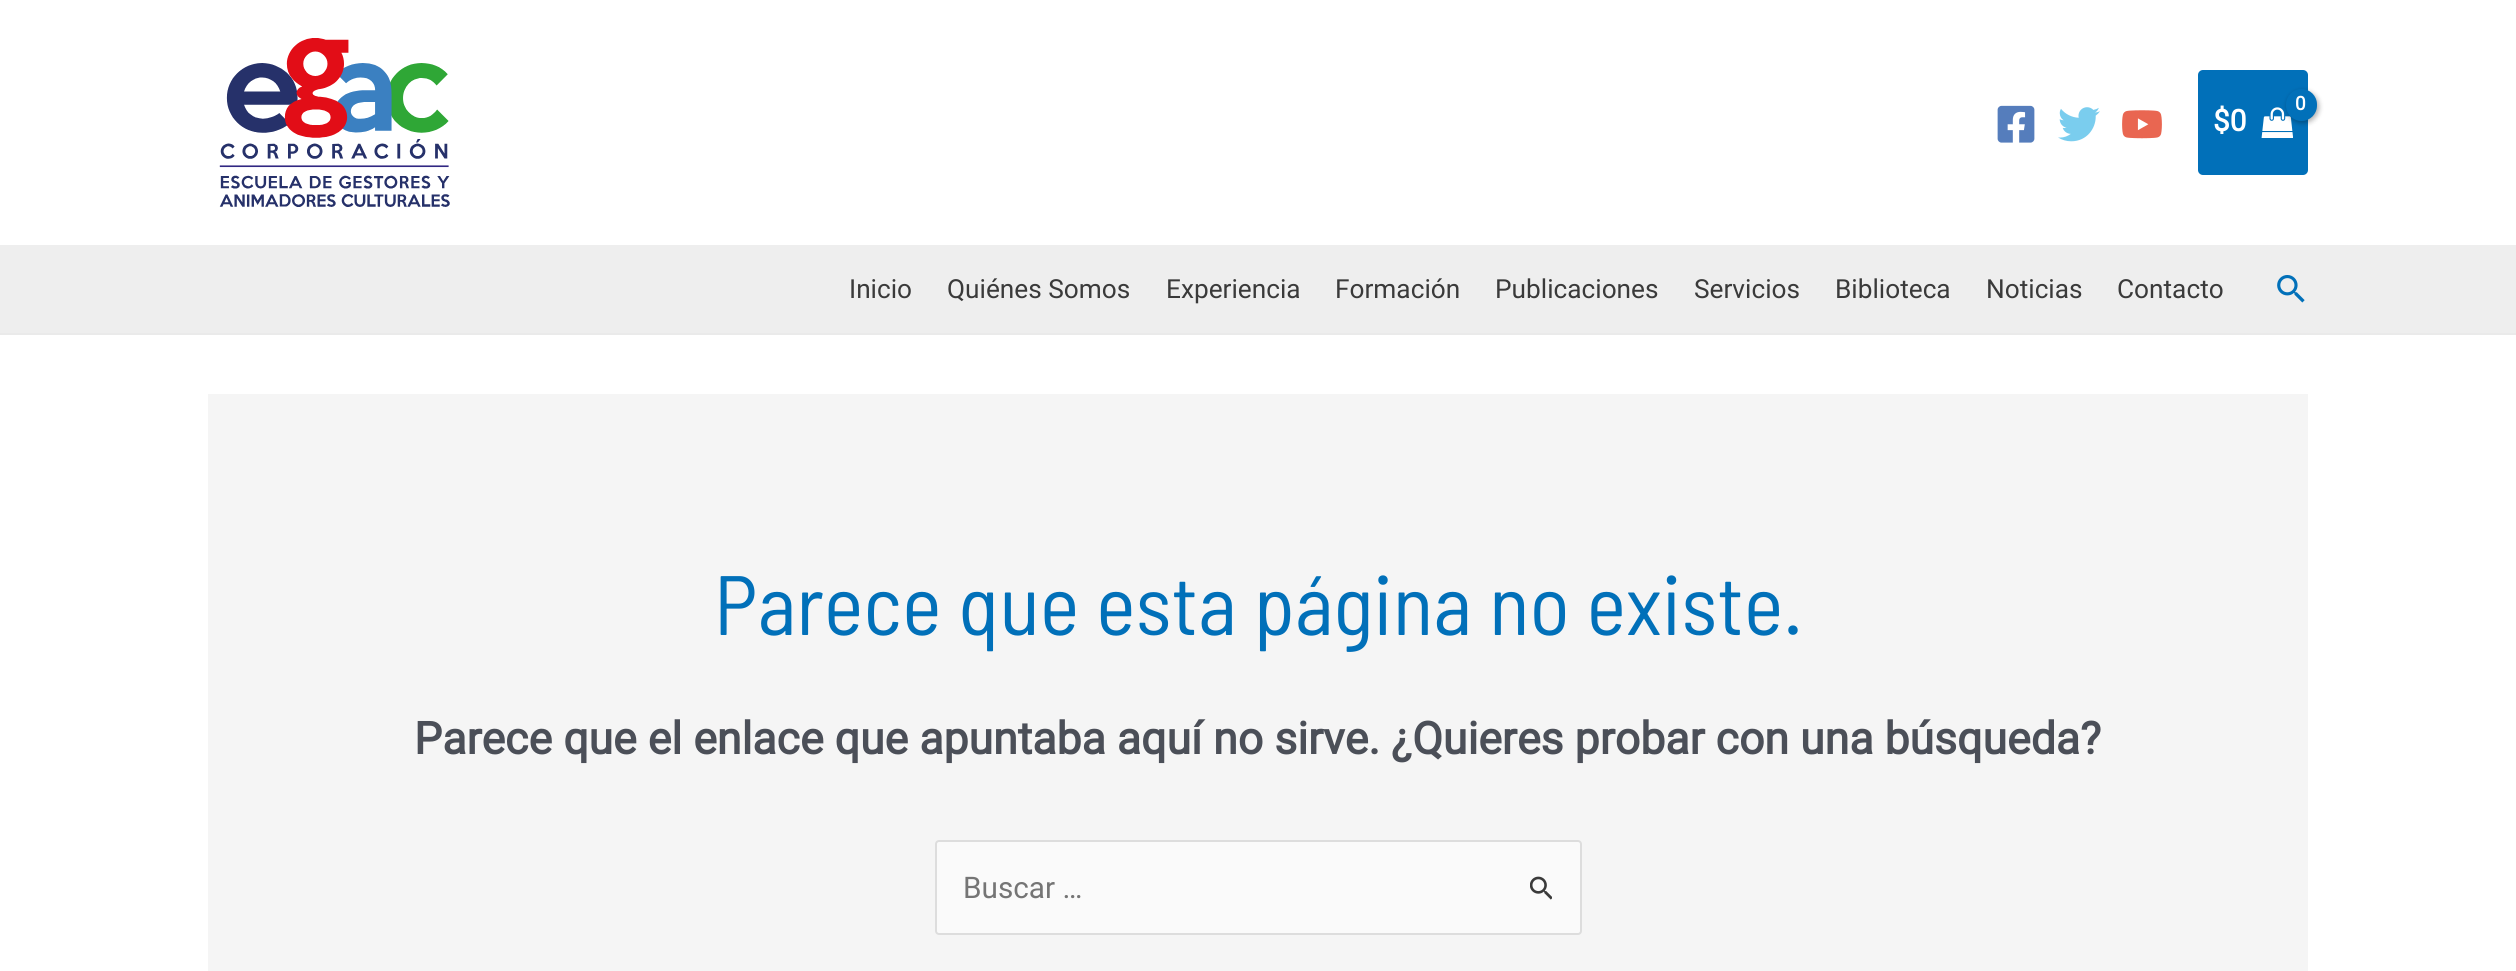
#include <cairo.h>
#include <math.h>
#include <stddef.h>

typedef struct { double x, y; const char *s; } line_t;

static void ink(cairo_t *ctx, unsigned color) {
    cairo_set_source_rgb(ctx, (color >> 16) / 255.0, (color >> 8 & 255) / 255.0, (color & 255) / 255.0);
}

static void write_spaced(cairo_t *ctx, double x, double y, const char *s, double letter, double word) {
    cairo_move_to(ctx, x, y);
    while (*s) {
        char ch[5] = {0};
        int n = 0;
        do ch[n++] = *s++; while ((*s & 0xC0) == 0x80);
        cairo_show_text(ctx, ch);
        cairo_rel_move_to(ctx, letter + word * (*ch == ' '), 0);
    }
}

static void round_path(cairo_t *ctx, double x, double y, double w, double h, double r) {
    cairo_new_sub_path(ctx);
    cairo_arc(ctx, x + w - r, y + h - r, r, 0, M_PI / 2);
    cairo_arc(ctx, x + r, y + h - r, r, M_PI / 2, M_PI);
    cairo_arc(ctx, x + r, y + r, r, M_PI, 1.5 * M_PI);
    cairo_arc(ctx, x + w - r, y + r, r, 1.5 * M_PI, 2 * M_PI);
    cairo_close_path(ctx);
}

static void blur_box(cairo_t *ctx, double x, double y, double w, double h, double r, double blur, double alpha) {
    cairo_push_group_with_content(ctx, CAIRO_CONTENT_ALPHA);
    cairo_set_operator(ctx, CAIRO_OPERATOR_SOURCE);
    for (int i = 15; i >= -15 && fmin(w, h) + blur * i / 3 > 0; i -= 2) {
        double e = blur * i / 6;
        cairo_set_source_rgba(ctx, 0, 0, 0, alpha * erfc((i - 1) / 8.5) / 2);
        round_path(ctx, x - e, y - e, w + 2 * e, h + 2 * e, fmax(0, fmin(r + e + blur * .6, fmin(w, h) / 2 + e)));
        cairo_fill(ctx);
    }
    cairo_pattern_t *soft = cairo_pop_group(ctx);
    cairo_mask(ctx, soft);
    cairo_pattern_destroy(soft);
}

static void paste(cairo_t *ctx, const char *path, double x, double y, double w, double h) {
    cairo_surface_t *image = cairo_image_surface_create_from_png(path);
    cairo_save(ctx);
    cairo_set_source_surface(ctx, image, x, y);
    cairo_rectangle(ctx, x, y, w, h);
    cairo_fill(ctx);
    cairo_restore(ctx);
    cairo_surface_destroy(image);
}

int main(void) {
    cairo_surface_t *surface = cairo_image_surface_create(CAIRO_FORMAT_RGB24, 2516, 971);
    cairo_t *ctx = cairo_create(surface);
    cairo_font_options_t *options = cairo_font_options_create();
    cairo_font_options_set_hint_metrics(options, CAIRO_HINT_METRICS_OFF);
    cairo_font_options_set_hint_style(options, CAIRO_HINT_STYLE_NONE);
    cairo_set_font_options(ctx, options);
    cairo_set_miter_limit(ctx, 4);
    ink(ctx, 0xFFFFFF);
    cairo_paint(ctx);
    paste(ctx, "media/1.png", 219, 38, 231, 169);
    paste(ctx, "media/2.png", 1997, 105, 38, 38);
    paste(ctx, "media/3.png", 2058, 107, 42, 35);
    paste(ctx, "media/4.png", 2122, 110, 40, 29);
    ink(ctx, 0x0170B9);
    round_path(ctx, 2198, 70, 110, 105, 5);
    cairo_fill(ctx);
    paste(ctx, "media/5.png", 2261, 107, 32, 31);
    ink(ctx, 0x000000);
    blur_box(ctx, 2287, 91, 32, 32, 16, 2.5, 0.3);
    ink(ctx, 0x0170B9);
    round_path(ctx, 2286, 89, 31, 32, 15.5);
    cairo_fill(ctx);
    cairo_select_font_face(ctx, "Roboto", CAIRO_FONT_SLANT_NORMAL, CAIRO_FONT_WEIGHT_BOLD);
    cairo_set_font_size(ctx, 19);
    ink(ctx, 0xFFFFFF);
    write_spaced(ctx, 2295, 110, "0", -1, 0);
    cairo_set_font_size(ctx, 29.75);
    cairo_move_to(ctx, 2213, 131);
    cairo_show_text(ctx, "$0");
    ink(ctx, 0xEEEEEE);
    cairo_rectangle(ctx, 0, 245, 2516, 88);
    cairo_fill(ctx);
    ink(ctx, 0xEAEAEA);
    cairo_rectangle(ctx, 0, 333, 2516, 2);
    cairo_fill(ctx);
    cairo_select_font_face(ctx, "Roboto", CAIRO_FONT_SLANT_NORMAL, CAIRO_FONT_WEIGHT_NORMAL);
    cairo_set_font_size(ctx, 26.25);
    ink(ctx, 0x3A3A3A);
    {
        static const line_t items[] = {
            {849, 298, "Inicio"},
            {947, 298, "Quiénes Somos"},
            {1166, 298, "Experiencia"},
            {1335, 298, "Formación"},
            {1495, 298, "Publicaciones"},
            {1694, 298, "Servicios"},
            {1835, 298, "Biblioteca"},
            {1986, 298, "Noticias"},
            {2117, 298, "Contacto"},
        };
        for (size_t i = 0; i < sizeof items / sizeof *items; i++) {
            cairo_move_to(ctx, items[i].x, items[i].y);
            cairo_show_text(ctx, items[i].s);
        }
    }
    paste(ctx, "media/6.png", 2277, 275, 28, 28);
    ink(ctx, 0xF5F5F5);
    cairo_rectangle(ctx, 208, 394, 2100, 577);
    cairo_fill(ctx);
    cairo_select_font_face(ctx, "Barlow Semi Condensed", CAIRO_FONT_SLANT_NORMAL, CAIRO_FONT_WEIGHT_NORMAL);
    cairo_set_font_size(ctx, 84);
    ink(ctx, 0x0170B9);
    cairo_move_to(ctx, 714, 635);
    cairo_show_text(ctx, "Parece que esta página no existe.");
    cairo_select_font_face(ctx, "Roboto", CAIRO_FONT_SLANT_NORMAL, CAIRO_FONT_WEIGHT_BOLD);
    cairo_set_font_size(ctx, 44.6);
    ink(ctx, 0x4B4F58);
    cairo_move_to(ctx, 414, 754);
    cairo_show_text(ctx, "Parece que el enlace que apuntaba aquí no sirve. ¿Quieres probar con una búsqueda?");
    ink(ctx, 0xFAFAFA);
    round_path(ctx, 936, 841, 645, 93, 3);
    cairo_fill_preserve(ctx);
    ink(ctx, 0xDDDDDD);
    cairo_stroke(ctx);
    cairo_select_font_face(ctx, "Roboto", CAIRO_FONT_SLANT_NORMAL, CAIRO_FONT_WEIGHT_NORMAL);
    cairo_set_font_size(ctx, 29.75);
    ink(ctx, 0x757575);
    cairo_move_to(ctx, 963, 898);
    cairo_show_text(ctx, "Buscar …");
    paste(ctx, "media/7.png", 1530, 876, 22, 24);
    cairo_surface_write_to_png(surface, "image.png");
    cairo_font_options_destroy(options);
    cairo_destroy(ctx);
    cairo_surface_destroy(surface);
    return 0;
}
